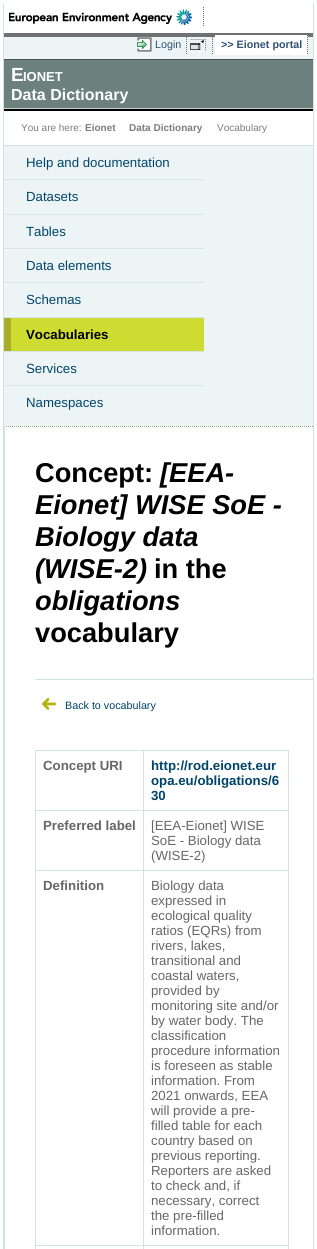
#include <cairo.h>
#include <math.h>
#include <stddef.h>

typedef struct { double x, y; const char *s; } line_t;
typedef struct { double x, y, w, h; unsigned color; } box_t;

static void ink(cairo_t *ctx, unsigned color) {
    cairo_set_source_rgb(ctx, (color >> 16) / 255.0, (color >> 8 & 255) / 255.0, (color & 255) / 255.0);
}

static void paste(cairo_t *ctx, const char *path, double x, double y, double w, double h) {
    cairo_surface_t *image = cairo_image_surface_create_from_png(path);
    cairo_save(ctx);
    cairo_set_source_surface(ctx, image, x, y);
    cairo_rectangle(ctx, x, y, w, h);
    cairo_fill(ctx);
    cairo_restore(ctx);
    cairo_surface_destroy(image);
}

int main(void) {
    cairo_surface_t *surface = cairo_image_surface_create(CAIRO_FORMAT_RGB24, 317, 1249);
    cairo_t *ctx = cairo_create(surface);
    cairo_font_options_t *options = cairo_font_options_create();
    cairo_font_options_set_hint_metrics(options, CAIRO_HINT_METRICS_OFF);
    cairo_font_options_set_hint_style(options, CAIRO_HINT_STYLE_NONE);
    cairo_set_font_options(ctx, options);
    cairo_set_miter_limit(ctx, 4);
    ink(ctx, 0xFFFFFF);
    cairo_paint(ctx);
    {
        static const box_t items[] = {
            {4, 37, 309, 389, 0xECF4F5},
            {313, 3, 1, 1246, 0xCFE3E4},
            {3, 3, 1, 1246, 0xCFE3E4},
            {4, 33, 309, 4, 0x6F7072},
        };
        for (size_t i = 0; i < sizeof items / sizeof *items; i++) {
            ink(ctx, items[i].color);
            cairo_rectangle(ctx, items[i].x, items[i].y, items[i].w, items[i].h);
            cairo_fill(ctx);
        }
    }
    paste(ctx, "media/1.png", 9, 9, 183, 16);
    cairo_new_path(ctx);
    cairo_move_to(ctx, 203.5, 7);
    cairo_line_to(ctx, 203.5, 27);
    cairo_set_line_width(ctx, 1);
    cairo_set_dash(ctx, (double[]){1, 1}, 2, 0);
    cairo_stroke(ctx);
    paste(ctx, "media/2.png", 137, 37, 15, 15);
    cairo_new_path(ctx);
    cairo_move_to(ctx, 186.5, 35);
    cairo_line_to(ctx, 186.5, 55);
    cairo_stroke(ctx);
    cairo_select_font_face(ctx, "Liberation Sans", CAIRO_FONT_SLANT_NORMAL, CAIRO_FONT_WEIGHT_NORMAL);
    cairo_set_font_size(ctx, 10.75);
    ink(ctx, 0x315076);
    cairo_move_to(ctx, 155, 48);
    cairo_show_text(ctx, "Login");
    paste(ctx, "media/3.png", 190, 39, 16, 12);
    cairo_new_path(ctx);
    cairo_move_to(ctx, 212.5, 35);
    cairo_line_to(ctx, 212.5, 55);
    ink(ctx, 0x6F7072);
    cairo_stroke(ctx);
    ink(ctx, 0xFFFFFF);
    cairo_rectangle(ctx, 215, 35, 93, 20);
    cairo_fill(ctx);
    cairo_new_path(ctx);
    cairo_move_to(ctx, 307.5, 35);
    cairo_line_to(ctx, 307.5, 55);
    ink(ctx, 0x6F7072);
    cairo_stroke(ctx);
    cairo_select_font_face(ctx, "Liberation Sans", CAIRO_FONT_SLANT_NORMAL, CAIRO_FONT_WEIGHT_BOLD);
    ink(ctx, 0x315076);
    cairo_move_to(ctx, 221, 48);
    cairo_show_text(ctx, ">> Eionet portal");
    {
        static const box_t items[] = {
            {4, 60, 309, 48, 0x6C817E},
            {4, 59, 309, 1, 0x4B5257},
            {4, 108, 309, 1, 0xCCCCCC},
        };
        for (size_t i = 0; i < sizeof items / sizeof *items; i++) {
            ink(ctx, items[i].color);
            cairo_rectangle(ctx, items[i].x, items[i].y, items[i].w, items[i].h);
            cairo_fill(ctx);
        }
    }
    cairo_set_font_size(ctx, 19);
    ink(ctx, 0xFFFFFF);
    cairo_move_to(ctx, 11, 81);
    cairo_show_text(ctx, "E");
    cairo_set_font_size(ctx, 13);
    cairo_move_to(ctx, 23, 81);
    cairo_show_text(ctx, "IONET");
    cairo_set_font_size(ctx, 16);
    cairo_move_to(ctx, 11, 100);
    cairo_show_text(ctx, "Data Dictionary");
    {
        static const box_t items[] = {
            {4, 109, 309, 2, 0x000000},
            {4, 111, 309, 34, 0xFFFFFF},
            {4, 145, 309, 1, 0xCFE3E4},
        };
        for (size_t i = 0; i < sizeof items / sizeof *items; i++) {
            ink(ctx, items[i].color);
            cairo_rectangle(ctx, items[i].x, items[i].y, items[i].w, items[i].h);
            cairo_fill(ctx);
        }
    }
    cairo_select_font_face(ctx, "Liberation Sans", CAIRO_FONT_SLANT_NORMAL, CAIRO_FONT_WEIGHT_NORMAL);
    cairo_set_font_size(ctx, 10);
    ink(ctx, 0x7D7D7D);
    cairo_move_to(ctx, 21, 131);
    cairo_show_text(ctx, "You are here:");
    cairo_select_font_face(ctx, "Liberation Sans", CAIRO_FONT_SLANT_NORMAL, CAIRO_FONT_WEIGHT_BOLD);
    cairo_move_to(ctx, 85, 131);
    cairo_show_text(ctx, "Eionet");
    cairo_move_to(ctx, 129, 131);
    cairo_show_text(ctx, "Data Dictionary");
    cairo_select_font_face(ctx, "Liberation Sans", CAIRO_FONT_SLANT_NORMAL, CAIRO_FONT_WEIGHT_NORMAL);
    cairo_move_to(ctx, 217, 131);
    cairo_show_text(ctx, "Vocabulary");
    cairo_set_font_size(ctx, 13.25);
    ink(ctx, 0x00446A);
    cairo_move_to(ctx, 26, 167);
    cairo_show_text(ctx, "Help and documentation");
    ink(ctx, 0xD5E5E6);
    cairo_rectangle(ctx, 4, 179, 200, 1);
    cairo_fill(ctx);
    ink(ctx, 0x00446A);
    cairo_move_to(ctx, 26, 201);
    cairo_show_text(ctx, "Datasets");
    ink(ctx, 0xD5E5E6);
    cairo_rectangle(ctx, 4, 214, 200, 1);
    cairo_fill(ctx);
    ink(ctx, 0x00446A);
    cairo_move_to(ctx, 26, 236);
    cairo_show_text(ctx, "Tables");
    ink(ctx, 0xD5E5E6);
    cairo_rectangle(ctx, 4, 248, 200, 1);
    cairo_fill(ctx);
    ink(ctx, 0x00446A);
    cairo_move_to(ctx, 26, 270);
    cairo_show_text(ctx, "Data elements");
    ink(ctx, 0xD5E5E6);
    cairo_rectangle(ctx, 4, 282, 200, 1);
    cairo_fill(ctx);
    ink(ctx, 0x00446A);
    cairo_move_to(ctx, 26, 304);
    cairo_show_text(ctx, "Schemas");
    {
        static const box_t items[] = {
            {4, 317, 200, 1, 0xD5E5E6},
            {11, 318, 193, 33, 0xCEDC32},
            {4, 318, 7, 33, 0xAAAD28},
        };
        for (size_t i = 0; i < sizeof items / sizeof *items; i++) {
            ink(ctx, items[i].color);
            cairo_rectangle(ctx, items[i].x, items[i].y, items[i].w, items[i].h);
            cairo_fill(ctx);
        }
    }
    cairo_select_font_face(ctx, "Liberation Sans", CAIRO_FONT_SLANT_NORMAL, CAIRO_FONT_WEIGHT_BOLD);
    ink(ctx, 0x000000);
    cairo_move_to(ctx, 26, 339);
    cairo_show_text(ctx, "Vocabularies");
    ink(ctx, 0xD5E5E6);
    cairo_rectangle(ctx, 4, 351, 200, 1);
    cairo_fill(ctx);
    cairo_select_font_face(ctx, "Liberation Sans", CAIRO_FONT_SLANT_NORMAL, CAIRO_FONT_WEIGHT_NORMAL);
    ink(ctx, 0x00446A);
    cairo_move_to(ctx, 26, 373);
    cairo_show_text(ctx, "Services");
    ink(ctx, 0xD5E5E6);
    cairo_rectangle(ctx, 4, 385, 200, 1);
    cairo_fill(ctx);
    ink(ctx, 0x00446A);
    cairo_move_to(ctx, 26, 407);
    cairo_show_text(ctx, "Namespaces");
    cairo_new_path(ctx);
    cairo_move_to(ctx, 4, 426.5);
    cairo_line_to(ctx, 313, 426.5);
    ink(ctx, 0x8FA771);
    cairo_stroke(ctx);
    ink(ctx, 0xCFE3E4);
    cairo_rectangle(ctx, 4, 426, 1, 823);
    cairo_fill(ctx);
    cairo_select_font_face(ctx, "Liberation Sans", CAIRO_FONT_SLANT_NORMAL, CAIRO_FONT_WEIGHT_BOLD);
    cairo_set_font_size(ctx, 27.25);
    ink(ctx, 0x000000);
    cairo_move_to(ctx, 35, 482);
    cairo_show_text(ctx, "Concept:");
    cairo_select_font_face(ctx, "Liberation Sans", CAIRO_FONT_SLANT_ITALIC, CAIRO_FONT_WEIGHT_BOLD);
    {
        static const line_t items[] = {
            {160, 482, "[EEA-"},
            {35, 514, "Eionet] WISE SoE -"},
            {35, 546, "Biology data"},
            {35, 578, "(WISE-2)"},
        };
        for (size_t i = 0; i < sizeof items / sizeof *items; i++) {
            cairo_move_to(ctx, items[i].x, items[i].y);
            cairo_show_text(ctx, items[i].s);
        }
    }
    cairo_select_font_face(ctx, "Liberation Sans", CAIRO_FONT_SLANT_NORMAL, CAIRO_FONT_WEIGHT_BOLD);
    cairo_move_to(ctx, 154, 578);
    cairo_show_text(ctx, "in the");
    cairo_select_font_face(ctx, "Liberation Sans", CAIRO_FONT_SLANT_ITALIC, CAIRO_FONT_WEIGHT_BOLD);
    cairo_move_to(ctx, 35, 610);
    cairo_show_text(ctx, "obligations");
    cairo_select_font_face(ctx, "Liberation Sans", CAIRO_FONT_SLANT_NORMAL, CAIRO_FONT_WEIGHT_BOLD);
    cairo_move_to(ctx, 35, 642);
    cairo_show_text(ctx, "vocabulary");
    ink(ctx, 0xCFE3E4);
    cairo_rectangle(ctx, 35, 679, 278, 1);
    cairo_fill(ctx);
    paste(ctx, "media/4.png", 42, 698, 14, 12);
    cairo_select_font_face(ctx, "Liberation Sans", CAIRO_FONT_SLANT_NORMAL, CAIRO_FONT_WEIGHT_NORMAL);
    cairo_set_font_size(ctx, 10.75);
    ink(ctx, 0x00446A);
    cairo_move_to(ctx, 65, 709);
    cairo_show_text(ctx, "Back to vocabulary");
    {
        static const box_t items[] = {
            {288, 750, 1, 499, 0xCFE3E4},
            {35, 750, 1, 499, 0xCFE3E4},
            {143, 750, 146, 1, 0xCFE3E4},
            {143, 810, 146, 1, 0xCFE3E4},
            {143, 870, 146, 1, 0xCFE3E4},
            {143, 1245, 146, 1, 0xCFE3E4},
            {143, 1245, 1, 4, 0xCFE3E4},
            {35, 1245, 109, 1, 0xCFE3E4},
            {143, 870, 1, 376, 0xCFE3E4},
            {35, 870, 109, 1, 0xCFE3E4},
            {143, 810, 1, 61, 0xCFE3E4},
            {35, 810, 109, 1, 0xCFE3E4},
            {143, 750, 1, 61, 0xCFE3E4},
            {35, 750, 109, 1, 0xCFE3E4},
        };
        for (size_t i = 0; i < sizeof items / sizeof *items; i++) {
            ink(ctx, items[i].color);
            cairo_rectangle(ctx, items[i].x, items[i].y, items[i].w, items[i].h);
            cairo_fill(ctx);
        }
    }
    cairo_select_font_face(ctx, "Liberation Sans", CAIRO_FONT_SLANT_NORMAL, CAIRO_FONT_WEIGHT_BOLD);
    cairo_set_font_size(ctx, 13.25);
    ink(ctx, 0x666666);
    cairo_move_to(ctx, 43, 770);
    cairo_show_text(ctx, "Concept URI");
    ink(ctx, 0x00446A);
    {
        static const line_t items[] = {
            {151, 770, "http://rod.eionet.eur"},
            {151, 785, "opa.eu/obligations/6"},
            {151, 800, "30"},
        };
        for (size_t i = 0; i < sizeof items / sizeof *items; i++) {
            cairo_move_to(ctx, items[i].x, items[i].y);
            cairo_show_text(ctx, items[i].s);
        }
    }
    ink(ctx, 0x666666);
    cairo_move_to(ctx, 43, 830);
    cairo_show_text(ctx, "Preferred label");
    cairo_select_font_face(ctx, "Liberation Sans", CAIRO_FONT_SLANT_NORMAL, CAIRO_FONT_WEIGHT_NORMAL);
    {
        static const line_t items[] = {
            {151, 830, "[EEA-Eionet] WISE"},
            {151, 845, "SoE - Biology data"},
            {151, 860, "(WISE-2)"},
        };
        for (size_t i = 0; i < sizeof items / sizeof *items; i++) {
            cairo_move_to(ctx, items[i].x, items[i].y);
            cairo_show_text(ctx, items[i].s);
        }
    }
    cairo_select_font_face(ctx, "Liberation Sans", CAIRO_FONT_SLANT_NORMAL, CAIRO_FONT_WEIGHT_BOLD);
    cairo_move_to(ctx, 43, 890);
    cairo_show_text(ctx, "Definition");
    cairo_select_font_face(ctx, "Liberation Sans", CAIRO_FONT_SLANT_NORMAL, CAIRO_FONT_WEIGHT_NORMAL);
    {
        static const line_t items[] = {
            {151, 890, "Biology data"},
            {151, 905, "expressed in"},
            {151, 920, "ecological quality"},
            {151, 935, "ratios (EQRs) from"},
            {151, 950, "rivers, lakes,"},
            {151, 965, "transitional and"},
            {151, 980, "coastal waters,"},
            {151, 995, "provided by"},
            {151, 1010, "monitoring site and/or"},
            {151, 1025, "by water body. The"},
            {151, 1040, "classification"},
            {151, 1055, "procedure information"},
            {151, 1070, "is foreseen as stable"},
            {151, 1085, "information. From"},
            {151, 1100, "2021 onwards, EEA"},
            {151, 1115, "will provide a pre-"},
            {151, 1130, "filled table for each"},
            {151, 1145, "country based on"},
            {151, 1160, "previous reporting."},
            {151, 1175, "Reporters are asked"},
            {151, 1190, "to check and, if"},
            {151, 1205, "necessary, correct"},
            {151, 1220, "the pre-filled"},
            {151, 1235, "information."},
        };
        for (size_t i = 0; i < sizeof items / sizeof *items; i++) {
            cairo_move_to(ctx, items[i].x, items[i].y);
            cairo_show_text(ctx, items[i].s);
        }
    }
    cairo_surface_write_to_png(surface, "image.png");
    cairo_font_options_destroy(options);
    cairo_destroy(ctx);
    cairo_surface_destroy(surface);
    return 0;
}
